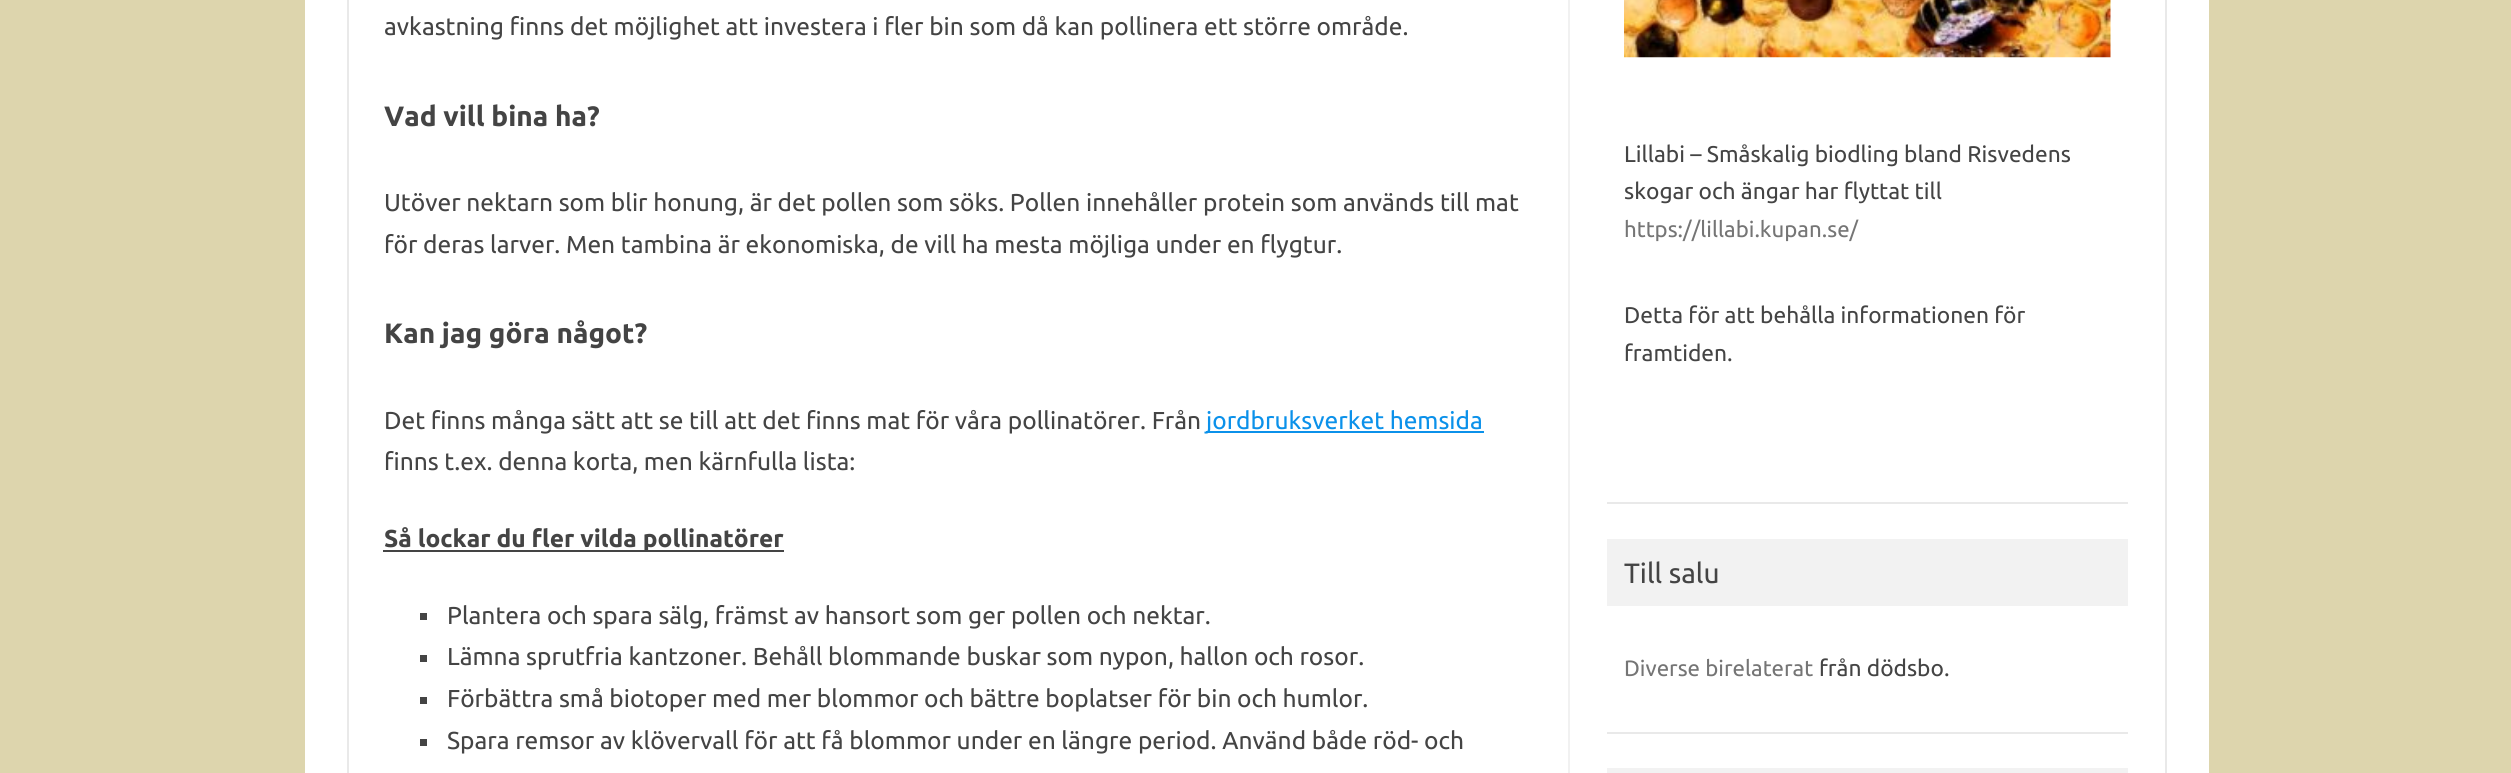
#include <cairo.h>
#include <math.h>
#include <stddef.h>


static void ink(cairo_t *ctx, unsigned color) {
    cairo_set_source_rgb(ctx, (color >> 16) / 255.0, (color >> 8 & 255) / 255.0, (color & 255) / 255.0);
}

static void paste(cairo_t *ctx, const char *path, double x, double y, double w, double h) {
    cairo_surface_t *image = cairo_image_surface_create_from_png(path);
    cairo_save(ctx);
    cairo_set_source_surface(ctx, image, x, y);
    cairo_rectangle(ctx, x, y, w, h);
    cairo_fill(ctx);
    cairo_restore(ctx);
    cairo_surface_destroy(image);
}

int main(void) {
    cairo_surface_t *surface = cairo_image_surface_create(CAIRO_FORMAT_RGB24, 2511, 773);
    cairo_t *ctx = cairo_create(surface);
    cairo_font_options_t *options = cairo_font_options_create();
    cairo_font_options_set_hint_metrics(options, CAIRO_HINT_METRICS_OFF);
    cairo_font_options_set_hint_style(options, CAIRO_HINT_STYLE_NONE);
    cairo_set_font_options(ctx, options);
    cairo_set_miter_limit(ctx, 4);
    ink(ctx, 0xDDD5AD);
    cairo_paint(ctx);
    ink(ctx, 0xFFFFFF);
    cairo_rectangle(ctx, 305, 0, 1904, 773);
    cairo_fill(ctx);
    cairo_rectangle(ctx, 348, -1, 1818, 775);
    ink(ctx, 0xE9E9E9);
    cairo_stroke(ctx);
    ink(ctx, 0xF1F1F1);
    cairo_rectangle(ctx, 1568, 0, 2, 773);
    cairo_fill(ctx);
    cairo_select_font_face(ctx, "Ubuntu", CAIRO_FONT_SLANT_NORMAL, CAIRO_FONT_WEIGHT_NORMAL);
    cairo_set_font_size(ctx, 24.5);
    ink(ctx, 0x444444);
    cairo_move_to(ctx, 384, 35);
    cairo_show_text(ctx, "avkastning finns det möjlighet att investera i fler bin som då kan pollinera ett större område.");
    cairo_select_font_face(ctx, "Ubuntu", CAIRO_FONT_SLANT_NORMAL, CAIRO_FONT_WEIGHT_BOLD);
    cairo_set_font_size(ctx, 28);
    cairo_move_to(ctx, 384, 126);
    cairo_show_text(ctx, "Vad vill bina ha?");
    cairo_select_font_face(ctx, "Ubuntu", CAIRO_FONT_SLANT_NORMAL, CAIRO_FONT_WEIGHT_NORMAL);
    cairo_set_font_size(ctx, 24.5);
    cairo_move_to(ctx, 384, 211);
    cairo_show_text(ctx, "Utöver nektarn som blir honung, är det pollen som söks. Pollen innehåller protein som används till mat");
    cairo_move_to(ctx, 384, 253);
    cairo_show_text(ctx, "för deras larver. Men tambina är ekonomiska, de vill ha mesta möjliga under en flygtur.");
    cairo_select_font_face(ctx, "Ubuntu", CAIRO_FONT_SLANT_NORMAL, CAIRO_FONT_WEIGHT_BOLD);
    cairo_set_font_size(ctx, 28);
    cairo_move_to(ctx, 384, 343);
    cairo_show_text(ctx, "Kan jag göra något?");
    cairo_select_font_face(ctx, "Ubuntu", CAIRO_FONT_SLANT_NORMAL, CAIRO_FONT_WEIGHT_NORMAL);
    cairo_set_font_size(ctx, 24.5);
    cairo_move_to(ctx, 384, 429);
    cairo_show_text(ctx, "Det finns många sätt att se till att det finns mat för våra pollinatörer. Från");
    ink(ctx, 0x0B91EA);
    cairo_rectangle(ctx, 1206, 431, 278, 2);
    cairo_fill(ctx);
    cairo_move_to(ctx, 1206, 429);
    cairo_show_text(ctx, "jordbruksverket hemsida");
    ink(ctx, 0x444444);
    cairo_move_to(ctx, 384, 470);
    cairo_show_text(ctx, "finns t.ex. denna korta, men kärnfulla lista:");
    cairo_rectangle(ctx, 383, 550, 401, 2);
    cairo_fill(ctx);
    cairo_select_font_face(ctx, "Ubuntu", CAIRO_FONT_SLANT_NORMAL, CAIRO_FONT_WEIGHT_BOLD);
    cairo_move_to(ctx, 384, 547);
    cairo_show_text(ctx, "Så lockar du fler vilda pollinatörer");
    cairo_rectangle(ctx, 420, 613, 7, 7);
    cairo_fill(ctx);
    cairo_select_font_face(ctx, "Ubuntu", CAIRO_FONT_SLANT_NORMAL, CAIRO_FONT_WEIGHT_NORMAL);
    cairo_move_to(ctx, 447, 624);
    cairo_show_text(ctx, "Plantera och spara sälg, främst av hansort som ger pollen och nektar.");
    cairo_rectangle(ctx, 420, 655, 7, 7);
    cairo_fill(ctx);
    cairo_move_to(ctx, 447, 665);
    cairo_show_text(ctx, "Lämna sprutfria kantzoner. Behåll blommande buskar som nypon, hallon och rosor.");
    cairo_rectangle(ctx, 420, 697, 7, 7);
    cairo_fill(ctx);
    cairo_move_to(ctx, 447, 707);
    cairo_show_text(ctx, "Förbättra små biotoper med mer blommor och bättre boplatser för bin och humlor.");
    cairo_rectangle(ctx, 420, 739, 7, 7);
    cairo_fill(ctx);
    cairo_move_to(ctx, 447, 749);
    cairo_show_text(ctx, "Spara remsor av klövervall för att få blommor under en längre period. Använd både röd- och");
    ink(ctx, 0xE9E9E9);
    cairo_rectangle(ctx, 1607, 502, 521, 2);
    cairo_fill(ctx);
    paste(ctx, "media/1.png", 1624, 0, 487, 58);
    cairo_set_font_size(ctx, 22.75);
    ink(ctx, 0x444444);
    cairo_move_to(ctx, 1624, 162);
    cairo_show_text(ctx, "Lillabi – Småskalig biodling bland Risvedens");
    cairo_move_to(ctx, 1624, 199);
    cairo_show_text(ctx, "skogar och ängar har flyttat till");
    cairo_set_font_size(ctx, 22.25);
    ink(ctx, 0x757575);
    cairo_move_to(ctx, 1624, 237);
    cairo_show_text(ctx, "https://lillabi.kupan.se/");
    cairo_set_font_size(ctx, 22.75);
    ink(ctx, 0x444444);
    cairo_move_to(ctx, 1624, 323);
    cairo_show_text(ctx, "Detta för att behålla informationen för");
    cairo_move_to(ctx, 1624, 361);
    cairo_show_text(ctx, "framtiden.");
    ink(ctx, 0xF2F2F2);
    cairo_rectangle(ctx, 1607, 539, 521, 67);
    cairo_fill(ctx);
    cairo_set_font_size(ctx, 28);
    ink(ctx, 0x444444);
    cairo_move_to(ctx, 1624, 583);
    cairo_show_text(ctx, "Till salu");
    ink(ctx, 0xE9E9E9);
    cairo_rectangle(ctx, 1607, 732, 521, 2);
    cairo_fill(ctx);
    cairo_set_font_size(ctx, 22.25);
    ink(ctx, 0x757575);
    cairo_move_to(ctx, 1624, 676);
    cairo_show_text(ctx, "Diverse birelaterat");
    cairo_set_font_size(ctx, 22.75);
    ink(ctx, 0x444444);
    cairo_move_to(ctx, 1819, 676);
    cairo_show_text(ctx, "från dödsbo.");
    ink(ctx, 0xF2F2F2);
    cairo_rectangle(ctx, 1607, 768, 521, 5);
    cairo_fill(ctx);
    cairo_surface_write_to_png(surface, "image.png");
    cairo_font_options_destroy(options);
    cairo_destroy(ctx);
    cairo_surface_destroy(surface);
    return 0;
}
